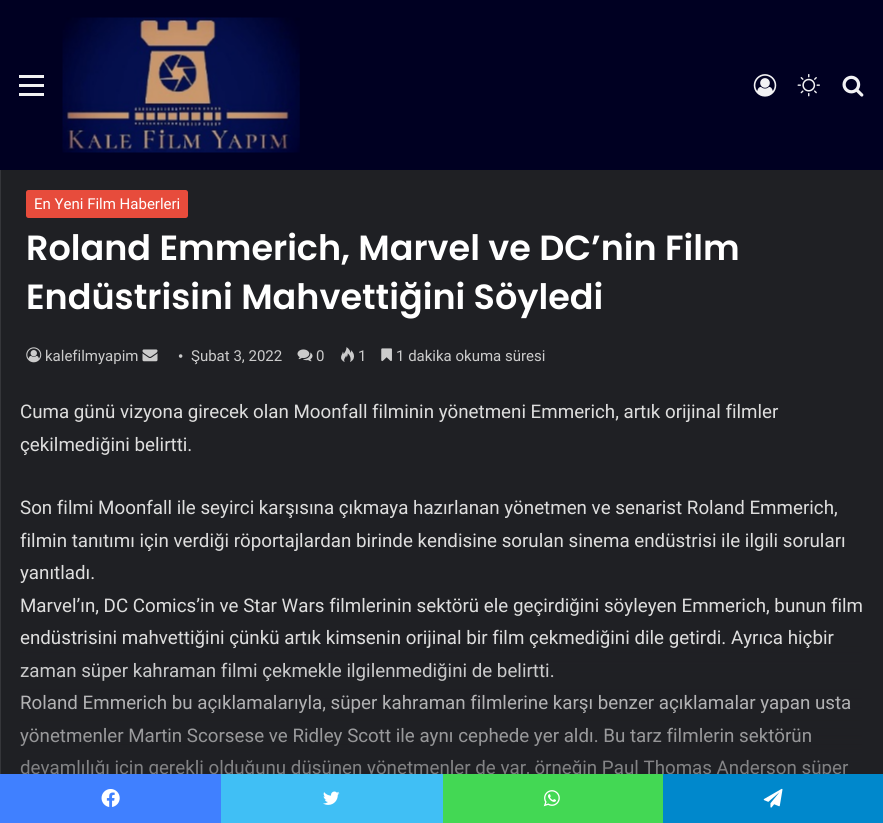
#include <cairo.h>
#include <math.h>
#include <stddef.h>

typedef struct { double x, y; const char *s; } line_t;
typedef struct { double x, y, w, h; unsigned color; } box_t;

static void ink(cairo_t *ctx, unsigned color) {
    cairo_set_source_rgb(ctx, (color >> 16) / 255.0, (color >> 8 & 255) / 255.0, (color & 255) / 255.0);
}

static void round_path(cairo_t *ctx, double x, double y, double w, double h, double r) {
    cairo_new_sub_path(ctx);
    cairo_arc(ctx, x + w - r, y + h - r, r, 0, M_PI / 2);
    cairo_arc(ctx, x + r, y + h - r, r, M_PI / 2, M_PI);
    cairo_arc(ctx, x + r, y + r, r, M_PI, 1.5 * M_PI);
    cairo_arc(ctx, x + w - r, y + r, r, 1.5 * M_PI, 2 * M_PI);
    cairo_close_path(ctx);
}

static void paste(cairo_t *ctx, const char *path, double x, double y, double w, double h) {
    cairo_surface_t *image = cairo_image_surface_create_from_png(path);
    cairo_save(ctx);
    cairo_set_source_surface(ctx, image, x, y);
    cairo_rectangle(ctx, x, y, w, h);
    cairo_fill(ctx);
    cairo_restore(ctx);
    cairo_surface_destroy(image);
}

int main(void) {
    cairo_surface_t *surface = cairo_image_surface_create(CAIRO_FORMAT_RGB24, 883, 823);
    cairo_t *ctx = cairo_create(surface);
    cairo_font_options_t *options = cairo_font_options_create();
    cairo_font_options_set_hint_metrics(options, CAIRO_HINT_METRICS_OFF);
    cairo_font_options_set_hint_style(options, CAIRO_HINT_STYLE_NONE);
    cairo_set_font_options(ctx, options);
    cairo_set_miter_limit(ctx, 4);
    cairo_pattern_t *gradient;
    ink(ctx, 0x1F2024);
    cairo_paint(ctx);
    cairo_rectangle(ctx, 0.5, 113.5, 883, 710);
    ink(ctx, 0x35363A);
    cairo_set_line_width(ctx, 1);
    cairo_stroke(ctx);
    {
        static const box_t items[] = {
            {0, 0, 883, 170, 0x000022},
            {19, 84, 25, 3, 0xF2F2F4},
            {19, 75, 25, 3, 0xF2F2F4},
            {19, 93, 25, 3, 0xF2F2F4},
        };
        for (size_t i = 0; i < sizeof items / sizeof *items; i++) {
            ink(ctx, items[i].color);
            cairo_rectangle(ctx, items[i].x, items[i].y, items[i].w, items[i].h);
            cairo_fill(ctx);
        }
    }
    paste(ctx, "media/1.png", 62, 17, 238, 136);
    paste(ctx, "media/2.png", 753, 74, 24, 23);
    paste(ctx, "media/3.png", 797, 74, 23, 23);
    paste(ctx, "media/4.png", 842, 75, 22, 22);
    ink(ctx, 0xE74C3C);
    round_path(ctx, 26, 190, 162, 28, 2.5);
    cairo_fill(ctx);
    cairo_select_font_face(ctx, "Roboto", CAIRO_FONT_SLANT_NORMAL, CAIRO_FONT_WEIGHT_NORMAL);
    cairo_set_font_size(ctx, 15);
    ink(ctx, 0xFFFFFF);
    cairo_move_to(ctx, 34, 209);
    cairo_show_text(ctx, "En Yeni Film Haberleri");
    cairo_select_font_face(ctx, "Poppins SemiBold", CAIRO_FONT_SLANT_NORMAL, CAIRO_FONT_WEIGHT_NORMAL);
    cairo_set_font_size(ctx, 35);
    cairo_move_to(ctx, 26, 260);
    cairo_show_text(ctx, "Roland Emmerich, Marvel ve DC’nin Film");
    cairo_move_to(ctx, 26, 309);
    cairo_show_text(ctx, "Endüstrisini Mahvettiğini Söyledi");
    paste(ctx, "media/5.png", 26, 347, 16, 16);
    cairo_select_font_face(ctx, "Roboto", CAIRO_FONT_SLANT_NORMAL, CAIRO_FONT_WEIGHT_NORMAL);
    cairo_set_font_size(ctx, 15);
    ink(ctx, 0xCCCCCC);
    cairo_move_to(ctx, 45, 361);
    cairo_show_text(ctx, "kalefilmyapim");
    paste(ctx, "media/6.png", 142, 349, 16, 13);
    cairo_select_font_face(ctx, "Liberation Serif", CAIRO_FONT_SLANT_NORMAL, CAIRO_FONT_WEIGHT_NORMAL);
    cairo_move_to(ctx, 178, 361);
    cairo_show_text(ctx, "•");
    cairo_select_font_face(ctx, "Roboto", CAIRO_FONT_SLANT_NORMAL, CAIRO_FONT_WEIGHT_NORMAL);
    cairo_move_to(ctx, 191, 361);
    cairo_show_text(ctx, "Şubat 3, 2022");
    paste(ctx, "media/7.png", 297, 349, 16, 13);
    cairo_move_to(ctx, 316, 361);
    cairo_show_text(ctx, "0");
    paste(ctx, "media/8.png", 341, 347, 13, 15);
    cairo_move_to(ctx, 358, 361);
    cairo_show_text(ctx, "1");
    paste(ctx, "media/9.png", 381, 348, 11, 14);
    cairo_move_to(ctx, 396, 361);
    cairo_show_text(ctx, "1 dakika okuma süresi");
    cairo_set_font_size(ctx, 18.75);
    ink(ctx, 0xFFFFFF);
    {
        static const line_t items[] = {
            {20, 418, "Cuma günü vizyona girecek olan Moonfall filminin yönetmeni Emmerich, artık orijinal filmler"},
            {20, 451, "çekilmediğini belirtti."},
            {20, 514, "Son filmi Moonfall ile seyirci karşısına çıkmaya hazırlanan yönetmen ve senarist Roland Emmerich,"},
            {20, 547, "filmin tanıtımı için verdiği röportajlardan birinde kendisine sorulan sinema endüstrisi ile ilgili soruları"},
            {20, 579, "yanıtladı."},
            {20, 612, "Marvel’ın, DC Comics’in ve Star Wars filmlerinin sektörü ele geçirdiğini söyleyen Emmerich, bunun film"},
            {20, 644, "endüstrisini mahvettiğini çünkü artık kimsenin orijinal bir film çekmediğini dile getirdi. Ayrıca hiçbir"},
            {20, 677, "zaman süper kahraman filmi çekmekle ilgilenmediğini de belirtti."},
            {20, 709, "Roland Emmerich bu açıklamalarıyla, süper kahraman filmlerine karşı benzer açıklamalar yapan usta"},
            {20, 742, "yönetmenler Martin Scorsese ve Ridley Scott ile aynı cephede yer aldı. Bu tarz filmlerin sektörün"},
            {20, 774, "devamlılığı için gerekli olduğunu düşünen yönetmenler de var, örneğin Paul Thomas Anderson süper"},
        };
        for (size_t i = 0; i < sizeof items / sizeof *items; i++) {
            cairo_move_to(ctx, items[i].x, items[i].y);
            cairo_show_text(ctx, items[i].s);
        }
    }
    gradient = cairo_pattern_create_linear(442, 396, 442, 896);
    cairo_pattern_add_color_stop_rgba(gradient, 0.5, 0.122, 0.125, 0.141, 0.15);
    cairo_pattern_add_color_stop_rgba(gradient, 1, 0.122, 0.125, 0.141, 1);
    cairo_set_source(ctx, gradient);
    cairo_pattern_destroy(gradient);
    cairo_rectangle(ctx, 20, 403, 842, 371);
    cairo_fill(ctx);
    ink(ctx, 0x4080FF);
    cairo_rectangle(ctx, 0, 774, 221, 49);
    cairo_fill(ctx);
    paste(ctx, "media/10.png", 101, 789, 19, 18);
    ink(ctx, 0x40BFF5);
    cairo_rectangle(ctx, 221, 774, 222, 49);
    cairo_fill(ctx);
    paste(ctx, "media/11.png", 323, 791, 17, 14);
    ink(ctx, 0x43D854);
    cairo_rectangle(ctx, 443, 774, 220, 49);
    cairo_fill(ctx);
    paste(ctx, "media/12.png", 543, 790, 17, 17);
    ink(ctx, 0x0088CC);
    cairo_rectangle(ctx, 663, 774, 220, 49);
    cairo_fill(ctx);
    paste(ctx, "media/13.png", 763, 788, 20, 20);
    cairo_surface_write_to_png(surface, "image.png");
    cairo_font_options_destroy(options);
    cairo_destroy(ctx);
    cairo_surface_destroy(surface);
    return 0;
}
